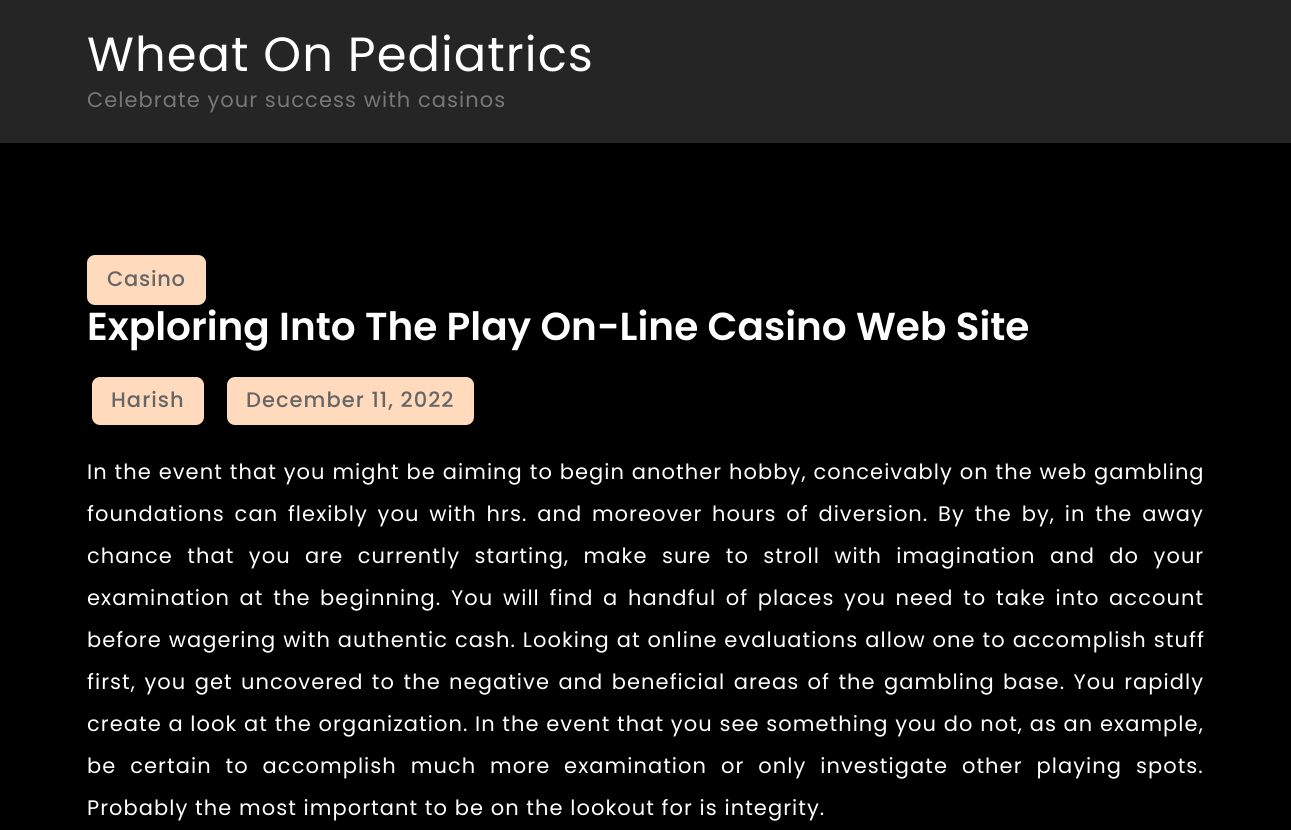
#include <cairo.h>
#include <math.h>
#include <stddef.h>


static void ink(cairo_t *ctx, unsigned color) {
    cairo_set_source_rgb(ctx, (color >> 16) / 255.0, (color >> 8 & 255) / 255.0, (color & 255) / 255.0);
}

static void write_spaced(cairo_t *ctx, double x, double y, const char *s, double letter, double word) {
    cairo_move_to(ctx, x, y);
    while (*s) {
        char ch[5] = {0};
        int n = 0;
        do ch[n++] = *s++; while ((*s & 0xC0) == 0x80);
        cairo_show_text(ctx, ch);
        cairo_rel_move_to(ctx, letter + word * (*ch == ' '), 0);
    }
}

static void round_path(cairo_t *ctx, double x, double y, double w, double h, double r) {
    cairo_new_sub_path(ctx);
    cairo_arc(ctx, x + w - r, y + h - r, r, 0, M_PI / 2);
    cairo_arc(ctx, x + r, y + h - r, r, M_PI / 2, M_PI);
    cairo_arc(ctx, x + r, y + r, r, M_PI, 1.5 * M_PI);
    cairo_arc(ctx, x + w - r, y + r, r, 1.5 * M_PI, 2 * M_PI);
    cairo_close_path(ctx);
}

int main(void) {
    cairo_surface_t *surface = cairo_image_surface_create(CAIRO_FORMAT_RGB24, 1291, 830);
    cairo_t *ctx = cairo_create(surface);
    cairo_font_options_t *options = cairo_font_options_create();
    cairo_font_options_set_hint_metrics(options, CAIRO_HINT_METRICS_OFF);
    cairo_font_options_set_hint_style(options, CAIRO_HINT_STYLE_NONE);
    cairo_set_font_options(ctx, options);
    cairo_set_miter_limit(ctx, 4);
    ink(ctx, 0x000000);
    cairo_paint(ctx);
    ink(ctx, 0x262525);
    cairo_rectangle(ctx, 0, 0, 1291, 143);
    cairo_fill(ctx);
    cairo_select_font_face(ctx, "Poppins", CAIRO_FONT_SLANT_NORMAL, CAIRO_FONT_WEIGHT_NORMAL);
    cairo_set_font_size(ctx, 48);
    ink(ctx, 0xFFFFFF);
    write_spaced(ctx, 87, 71, "Wheat On Pediatrics", 1.05, 0);
    cairo_set_font_size(ctx, 21);
    ink(ctx, 0x777777);
    write_spaced(ctx, 87, 107, "Celebrate your success with casinos", 1.05, 0);
    ink(ctx, 0xFFDABC);
    round_path(ctx, 87, 255, 119, 50, 8);
    cairo_fill(ctx);
    cairo_select_font_face(ctx, "Poppins Medium", CAIRO_FONT_SLANT_NORMAL, CAIRO_FONT_WEIGHT_NORMAL);
    ink(ctx, 0x666666);
    write_spaced(ctx, 107, 286, "Casino", 0.75, 0);
    cairo_select_font_face(ctx, "Poppins SemiBold", CAIRO_FONT_SLANT_NORMAL, CAIRO_FONT_WEIGHT_NORMAL);
    cairo_set_font_size(ctx, 39);
    ink(ctx, 0xFFFFFF);
    cairo_move_to(ctx, 87, 340);
    cairo_show_text(ctx, "Exploring Into The Play On-Line Casino Web Site");
    ink(ctx, 0xFFDABC);
    round_path(ctx, 92, 377, 112, 48, 8);
    cairo_fill(ctx);
    cairo_select_font_face(ctx, "Poppins Medium", CAIRO_FONT_SLANT_NORMAL, CAIRO_FONT_WEIGHT_NORMAL);
    cairo_set_font_size(ctx, 21);
    ink(ctx, 0x666666);
    write_spaced(ctx, 111, 407, "Harish", 1.05, 0);
    ink(ctx, 0xFFDABC);
    round_path(ctx, 227, 377, 247, 48, 8);
    cairo_fill(ctx);
    ink(ctx, 0x666666);
    write_spaced(ctx, 246, 407, "December 11, 2022", 1.05, 0);
    cairo_select_font_face(ctx, "Poppins", CAIRO_FONT_SLANT_NORMAL, CAIRO_FONT_WEIGHT_NORMAL);
    ink(ctx, 0xFFFFFF);
    write_spaced(ctx, 87, 479, "In the event that you might be aiming to begin another hobby, conceivably on the web gambling", 1.05, 0.2);
    write_spaced(ctx, 87, 521, "foundations can flexibly you with hrs. and moreover hours of diversion. By the by, in the away", 1.05, 3.1);
    write_spaced(ctx, 87, 563, "chance that you are currently starting, make sure to stroll with imagination and do your", 1.05, 7.75);
    write_spaced(ctx, 87, 605, "examination at the beginning. You will find a handful of places you need to take into account", 1.05, 3);
    write_spaced(ctx, 87, 647, "before wagering with authentic cash. Looking at online evaluations allow one to accomplish stuff", 1.05, 0.25);
    write_spaced(ctx, 87, 689, "first, you get uncovered to the negative and beneficial areas of the gambling base. You rapidly", 1.05, 1.75);
    write_spaced(ctx, 87, 731, "create a look at the organization. In the event that you see something you do not, as an example,", 1.05, 0);
    write_spaced(ctx, 87, 773, "be certain to accomplish much more examination or only investigate other playing spots.", 1.05, 7.25);
    write_spaced(ctx, 87, 815, "Probably the most important to be on the lookout for is integrity.", 1.05, 0);
    cairo_surface_write_to_png(surface, "image.png");
    cairo_font_options_destroy(options);
    cairo_destroy(ctx);
    cairo_surface_destroy(surface);
    return 0;
}
